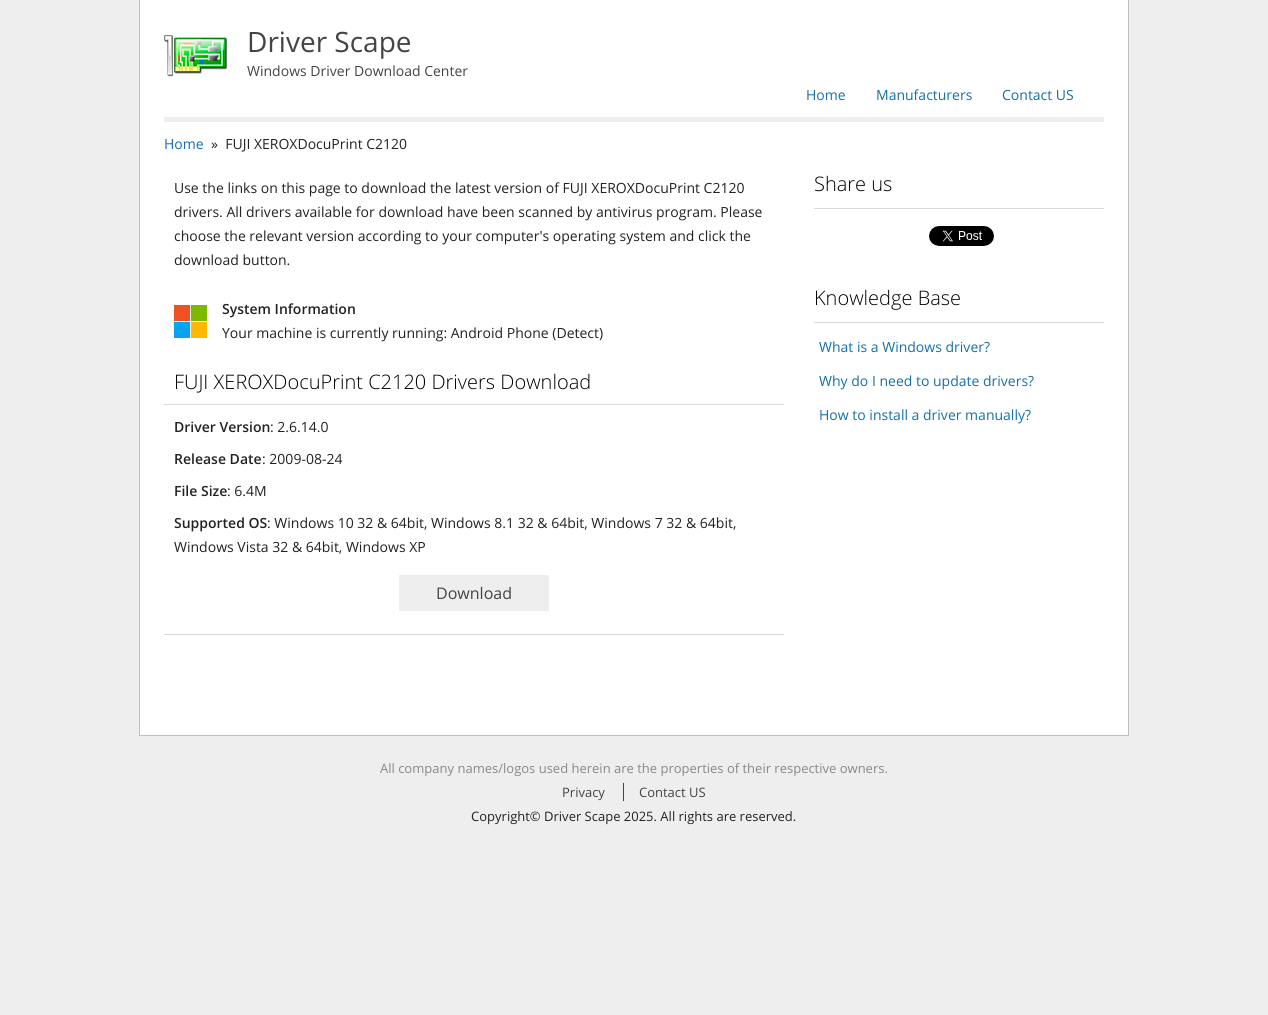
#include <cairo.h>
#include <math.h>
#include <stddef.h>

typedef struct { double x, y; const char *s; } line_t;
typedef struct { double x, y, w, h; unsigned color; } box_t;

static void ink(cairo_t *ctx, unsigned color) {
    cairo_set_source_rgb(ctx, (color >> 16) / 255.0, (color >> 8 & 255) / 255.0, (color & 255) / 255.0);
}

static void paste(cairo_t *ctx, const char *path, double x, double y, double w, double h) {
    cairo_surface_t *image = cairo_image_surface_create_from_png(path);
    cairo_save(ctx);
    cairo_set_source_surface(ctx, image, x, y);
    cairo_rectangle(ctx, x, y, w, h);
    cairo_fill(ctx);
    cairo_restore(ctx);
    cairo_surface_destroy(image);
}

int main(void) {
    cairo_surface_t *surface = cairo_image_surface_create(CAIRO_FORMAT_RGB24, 1268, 1015);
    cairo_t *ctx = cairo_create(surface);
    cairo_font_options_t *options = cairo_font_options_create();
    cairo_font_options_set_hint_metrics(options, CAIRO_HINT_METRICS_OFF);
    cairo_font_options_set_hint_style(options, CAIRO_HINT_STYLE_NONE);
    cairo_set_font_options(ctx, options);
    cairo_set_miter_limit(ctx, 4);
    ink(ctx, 0xEEEEEE);
    cairo_paint(ctx);
    {
        static const box_t items[] = {
            {140, 0, 988, 735, 0xFFFFFF},
            {1128, 0, 1, 736, 0xBFBFBF},
            {139, 735, 990, 1, 0xBFBFBF},
            {139, 0, 1, 736, 0xBFBFBF},
        };
        for (size_t i = 0; i < sizeof items / sizeof *items; i++) {
            ink(ctx, items[i].color);
            cairo_rectangle(ctx, items[i].x, items[i].y, items[i].w, items[i].h);
            cairo_fill(ctx);
        }
    }
    paste(ctx, "media/1.png", 164, 35, 63, 42);
    cairo_select_font_face(ctx, "Open Sans", CAIRO_FONT_SLANT_NORMAL, CAIRO_FONT_WEIGHT_NORMAL);
    cairo_set_font_size(ctx, 28);
    ink(ctx, 0x444444);
    cairo_move_to(ctx, 247, 52);
    cairo_show_text(ctx, "Driver Scape");
    cairo_set_font_size(ctx, 14);
    cairo_move_to(ctx, 247, 76);
    cairo_show_text(ctx, "Windows Driver Download Center");
    ink(ctx, 0x1570A6);
    {
        static const line_t items[] = {
            {806, 100, "Home"},
            {876, 100, "Manufacturers"},
            {1002, 100, "Contact US"},
        };
        for (size_t i = 0; i < sizeof items / sizeof *items; i++) {
            cairo_move_to(ctx, items[i].x, items[i].y);
            cairo_show_text(ctx, items[i].s);
        }
    }
    ink(ctx, 0xEEEEEE);
    cairo_rectangle(ctx, 164, 117, 940, 5);
    cairo_fill(ctx);
    ink(ctx, 0x1570A6);
    cairo_move_to(ctx, 164, 149);
    cairo_show_text(ctx, "Home");
    ink(ctx, 0x222222);
    {
        static const line_t items[] = {
            {211, 149, "»  FUJI XEROXDocuPrint C2120"},
            {174, 193, "Use the links on this page to download the latest version of FUJI XEROXDocuPrint C2120"},
            {174, 217, "drivers. All drivers available for download have been scanned by antivirus program. Please"},
            {174, 241, "choose the relevant version according to your computer's operating system and click the"},
            {174, 265, "download button."},
        };
        for (size_t i = 0; i < sizeof items / sizeof *items; i++) {
            cairo_move_to(ctx, items[i].x, items[i].y);
            cairo_show_text(ctx, items[i].s);
        }
    }
    paste(ctx, "media/2.png", 174, 305, 33, 33);
    cairo_select_font_face(ctx, "Open Sans SemiBold", CAIRO_FONT_SLANT_NORMAL, CAIRO_FONT_WEIGHT_NORMAL);
    cairo_move_to(ctx, 222, 314);
    cairo_show_text(ctx, "System Information");
    cairo_select_font_face(ctx, "Open Sans", CAIRO_FONT_SLANT_NORMAL, CAIRO_FONT_WEIGHT_NORMAL);
    cairo_move_to(ctx, 222, 338);
    cairo_show_text(ctx, "Your machine is currently running: Android Phone (Detect)");
    cairo_select_font_face(ctx, "Open Sans Light", CAIRO_FONT_SLANT_NORMAL, CAIRO_FONT_WEIGHT_NORMAL);
    cairo_set_font_size(ctx, 20);
    ink(ctx, 0x000000);
    cairo_move_to(ctx, 174, 389);
    cairo_show_text(ctx, "FUJI XEROXDocuPrint C2120 Drivers Download");
    ink(ctx, 0xD9D9D9);
    cairo_rectangle(ctx, 164, 404, 620, 1);
    cairo_fill(ctx);
    cairo_select_font_face(ctx, "Open Sans SemiBold", CAIRO_FONT_SLANT_NORMAL, CAIRO_FONT_WEIGHT_NORMAL);
    cairo_set_font_size(ctx, 14);
    ink(ctx, 0x222222);
    cairo_move_to(ctx, 174, 432);
    cairo_show_text(ctx, "Driver Version");
    cairo_select_font_face(ctx, "Open Sans", CAIRO_FONT_SLANT_NORMAL, CAIRO_FONT_WEIGHT_NORMAL);
    cairo_move_to(ctx, 270, 432);
    cairo_show_text(ctx, ": 2.6.14.0");
    cairo_select_font_face(ctx, "Open Sans SemiBold", CAIRO_FONT_SLANT_NORMAL, CAIRO_FONT_WEIGHT_NORMAL);
    cairo_move_to(ctx, 174, 464);
    cairo_show_text(ctx, "Release Date");
    cairo_select_font_face(ctx, "Open Sans", CAIRO_FONT_SLANT_NORMAL, CAIRO_FONT_WEIGHT_NORMAL);
    cairo_move_to(ctx, 262, 464);
    cairo_show_text(ctx, ": 2009-08-24");
    cairo_select_font_face(ctx, "Open Sans SemiBold", CAIRO_FONT_SLANT_NORMAL, CAIRO_FONT_WEIGHT_NORMAL);
    cairo_move_to(ctx, 174, 496);
    cairo_show_text(ctx, "File Size");
    cairo_select_font_face(ctx, "Open Sans", CAIRO_FONT_SLANT_NORMAL, CAIRO_FONT_WEIGHT_NORMAL);
    cairo_move_to(ctx, 227, 496);
    cairo_show_text(ctx, ": 6.4M");
    cairo_select_font_face(ctx, "Open Sans SemiBold", CAIRO_FONT_SLANT_NORMAL, CAIRO_FONT_WEIGHT_NORMAL);
    cairo_move_to(ctx, 174, 528);
    cairo_show_text(ctx, "Supported OS");
    cairo_select_font_face(ctx, "Open Sans", CAIRO_FONT_SLANT_NORMAL, CAIRO_FONT_WEIGHT_NORMAL);
    cairo_move_to(ctx, 267, 528);
    cairo_show_text(ctx, ": Windows 10 32 & 64bit, Windows 8.1 32 & 64bit, Windows 7 32 & 64bit,");
    cairo_move_to(ctx, 174, 552);
    cairo_show_text(ctx, "Windows Vista 32 & 64bit, Windows XP");
    ink(ctx, 0xEEEEEE);
    cairo_rectangle(ctx, 399, 575, 150, 36);
    cairo_fill(ctx);
    cairo_set_font_size(ctx, 16);
    ink(ctx, 0x444444);
    cairo_move_to(ctx, 436, 599);
    cairo_show_text(ctx, "Download");
    ink(ctx, 0xD9D9D9);
    cairo_rectangle(ctx, 164, 634, 620, 1);
    cairo_fill(ctx);
    cairo_select_font_face(ctx, "Open Sans Light", CAIRO_FONT_SLANT_NORMAL, CAIRO_FONT_WEIGHT_NORMAL);
    cairo_set_font_size(ctx, 20);
    ink(ctx, 0x000000);
    cairo_move_to(ctx, 814, 191);
    cairo_show_text(ctx, "Share us");
    ink(ctx, 0xD9D9D9);
    cairo_rectangle(ctx, 814, 208, 290, 1);
    cairo_fill(ctx);
    paste(ctx, "media/3.png", 929, 226, 65, 20);
    ink(ctx, 0x000000);
    cairo_move_to(ctx, 814, 305);
    cairo_show_text(ctx, "Knowledge Base");
    ink(ctx, 0xD9D9D9);
    cairo_rectangle(ctx, 814, 322, 290, 1);
    cairo_fill(ctx);
    cairo_select_font_face(ctx, "Open Sans", CAIRO_FONT_SLANT_NORMAL, CAIRO_FONT_WEIGHT_NORMAL);
    cairo_set_font_size(ctx, 14);
    ink(ctx, 0x1570A6);
    {
        static const line_t items[] = {
            {819, 352, "What is a Windows driver?"},
            {819, 386, "Why do I need to update drivers?"},
            {819, 420, "How to install a driver manually?"},
        };
        for (size_t i = 0; i < sizeof items / sizeof *items; i++) {
            cairo_move_to(ctx, items[i].x, items[i].y);
            cairo_show_text(ctx, items[i].s);
        }
    }
    cairo_set_font_size(ctx, 13);
    ink(ctx, 0x888888);
    cairo_move_to(ctx, 380, 773);
    cairo_show_text(ctx, "All company names/logos used herein are the properties of their respective owners.");
    ink(ctx, 0x444444);
    cairo_move_to(ctx, 562, 797);
    cairo_show_text(ctx, "Privacy");
    cairo_move_to(ctx, 639, 797);
    cairo_show_text(ctx, "Contact US");
    cairo_rectangle(ctx, 623, 783, 1, 18);
    cairo_fill(ctx);
    ink(ctx, 0x222222);
    cairo_move_to(ctx, 471, 821);
    cairo_show_text(ctx, "Copyright© Driver Scape 2025. All rights are reserved.");
    cairo_surface_write_to_png(surface, "image.png");
    cairo_font_options_destroy(options);
    cairo_destroy(ctx);
    cairo_surface_destroy(surface);
    return 0;
}
